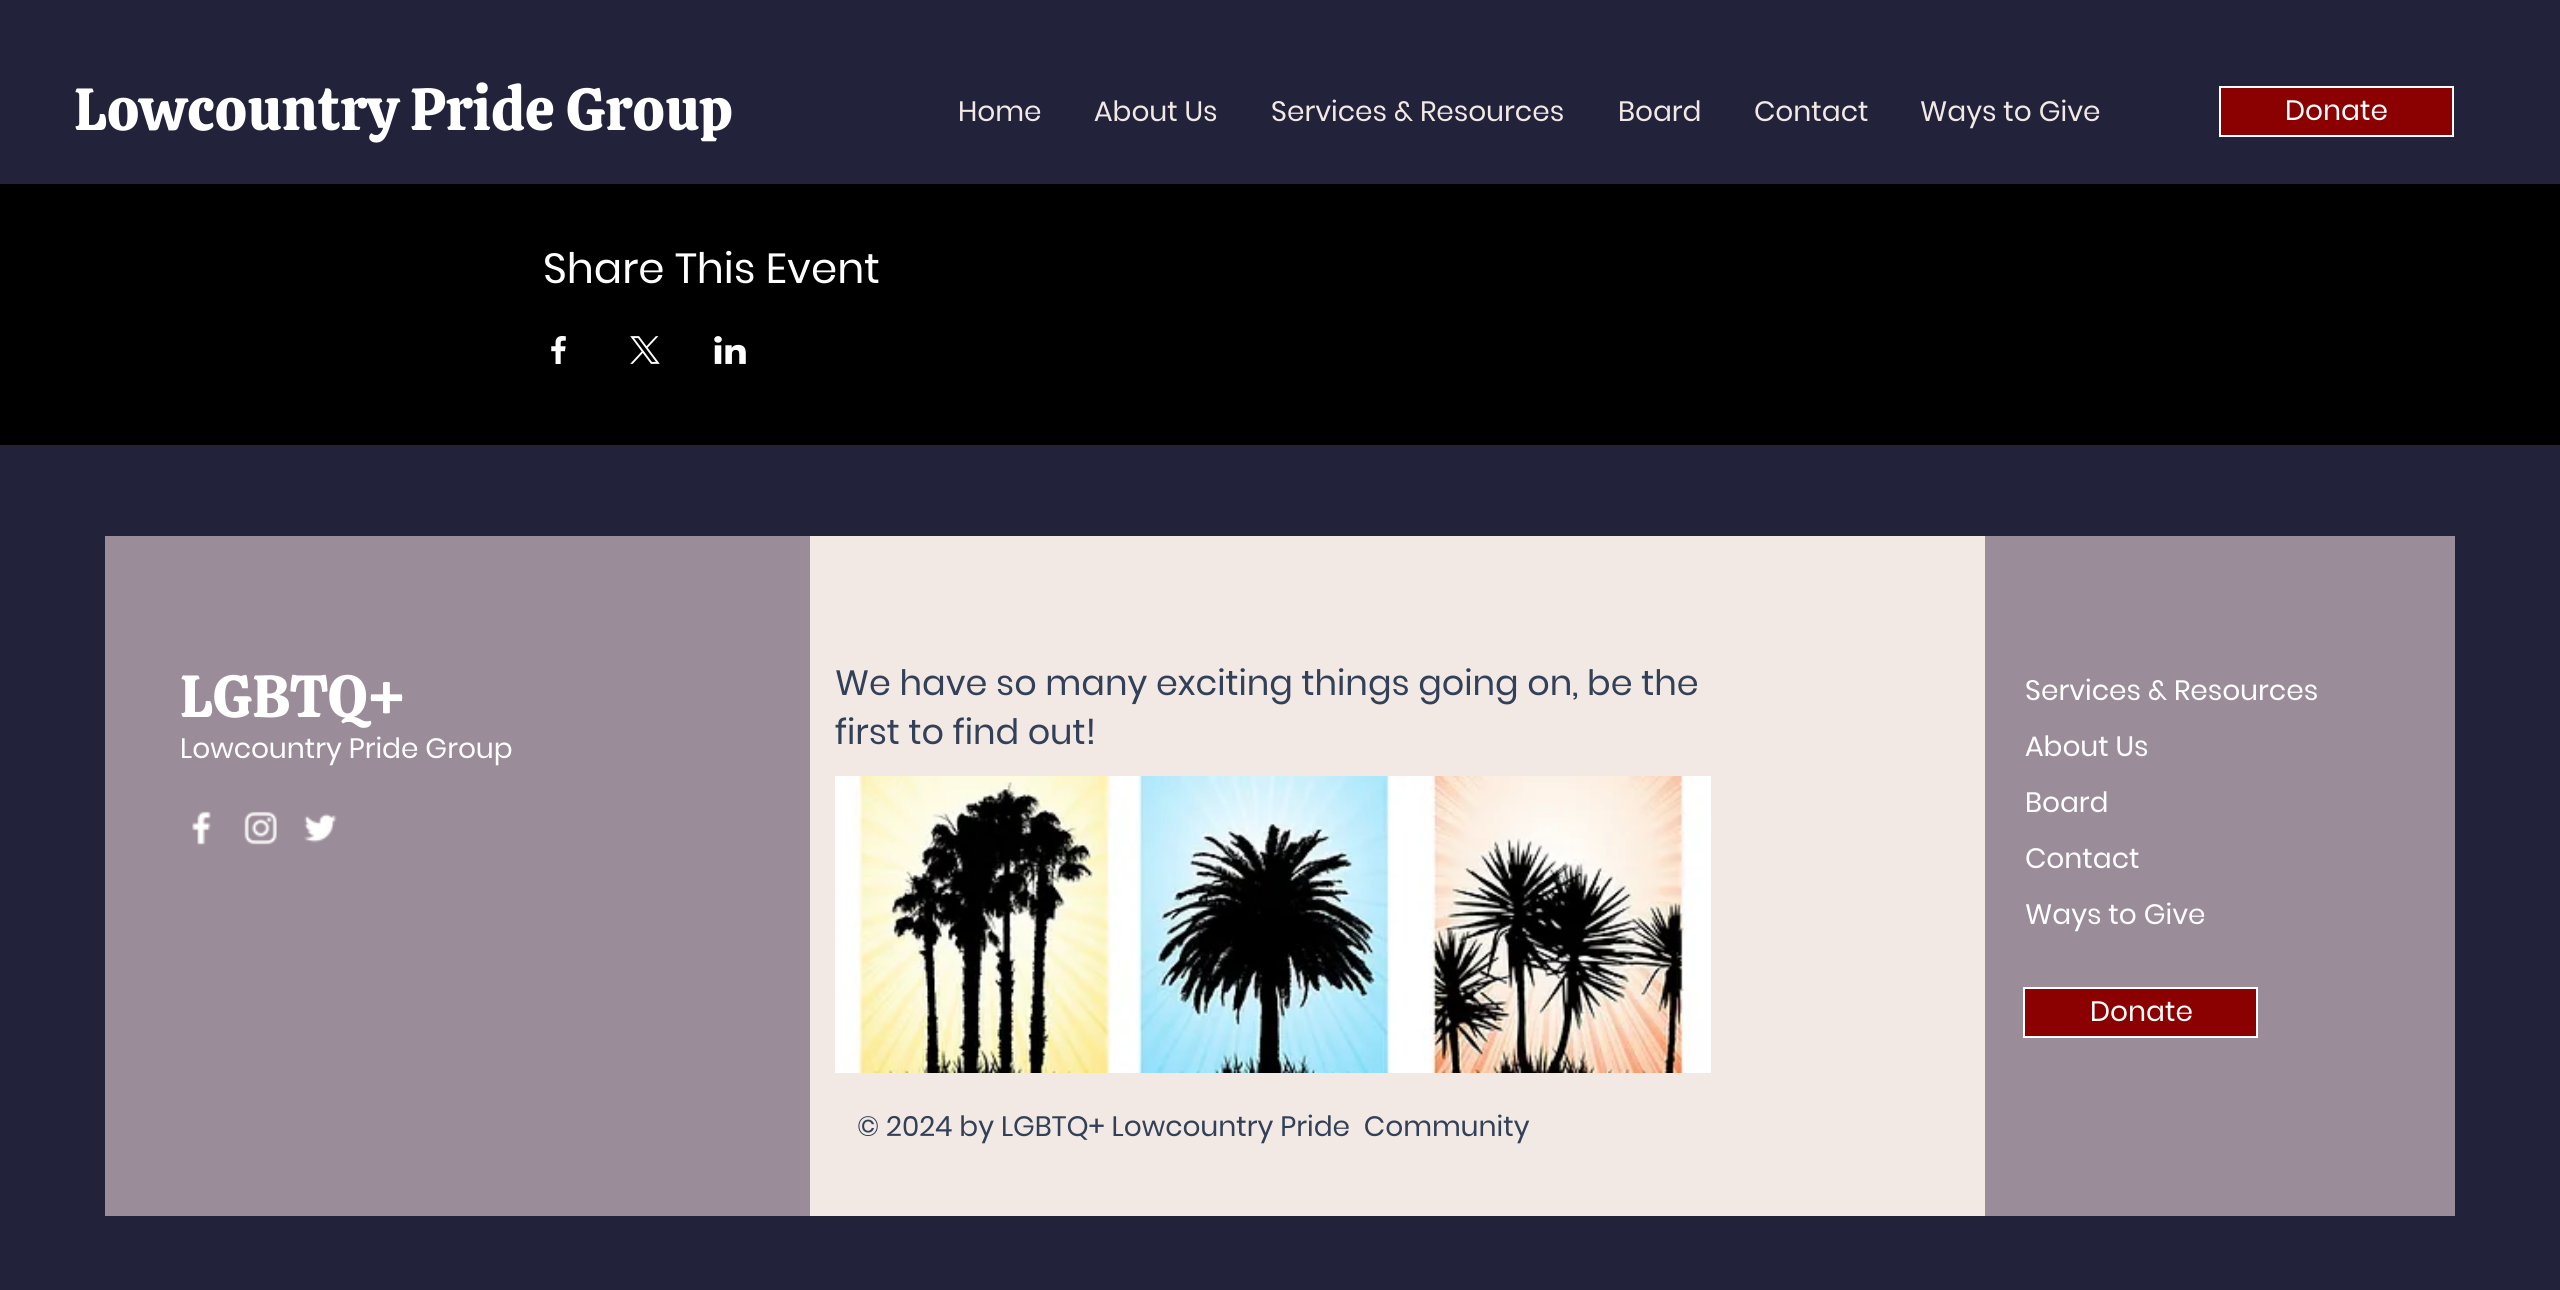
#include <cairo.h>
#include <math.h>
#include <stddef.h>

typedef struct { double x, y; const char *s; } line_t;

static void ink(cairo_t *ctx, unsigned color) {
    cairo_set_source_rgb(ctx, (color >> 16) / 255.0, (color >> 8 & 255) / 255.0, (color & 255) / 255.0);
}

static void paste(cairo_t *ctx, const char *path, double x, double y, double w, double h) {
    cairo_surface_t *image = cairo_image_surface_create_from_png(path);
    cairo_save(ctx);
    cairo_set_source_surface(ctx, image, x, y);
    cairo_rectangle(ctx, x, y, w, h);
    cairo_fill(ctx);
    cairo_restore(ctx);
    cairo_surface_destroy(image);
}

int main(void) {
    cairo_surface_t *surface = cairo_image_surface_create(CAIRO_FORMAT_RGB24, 2560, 1290);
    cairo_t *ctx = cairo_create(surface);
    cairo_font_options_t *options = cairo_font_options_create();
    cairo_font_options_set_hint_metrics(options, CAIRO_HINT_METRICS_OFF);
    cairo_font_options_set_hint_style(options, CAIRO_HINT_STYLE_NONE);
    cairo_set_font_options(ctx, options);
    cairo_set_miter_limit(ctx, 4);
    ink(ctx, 0x000000);
    cairo_paint(ctx);
    ink(ctx, 0x22223B);
    cairo_rectangle(ctx, 0, 0, 2560, 184);
    cairo_fill(ctx);
    cairo_select_font_face(ctx, "Calistoga", CAIRO_FONT_SLANT_NORMAL, CAIRO_FONT_WEIGHT_NORMAL);
    cairo_set_font_size(ctx, 59.5);
    ink(ctx, 0xFFFFFF);
    cairo_move_to(ctx, 74, 130);
    cairo_show_text(ctx, "Lowcountry Pride Group");
    cairo_select_font_face(ctx, "Poppins", CAIRO_FONT_SLANT_NORMAL, CAIRO_FONT_WEIGHT_NORMAL);
    cairo_set_font_size(ctx, 28);
    ink(ctx, 0xF2E9E4);
    {
        static const line_t items[] = {
            {958, 121, "Home"},
            {1094, 121, "About Us"},
            {1271, 121, "Services & Resources"},
            {1618, 121, "Board"},
            {1754, 121, "Contact"},
            {1920, 121, "Ways to Give"},
        };
        for (size_t i = 0; i < sizeof items / sizeof *items; i++) {
            cairo_move_to(ctx, items[i].x, items[i].y);
            cairo_show_text(ctx, items[i].s);
        }
    }
    ink(ctx, 0x8B0000);
    cairo_rectangle(ctx, 2220, 87, 233, 49);
    cairo_fill_preserve(ctx);
    ink(ctx, 0xFFFFFF);
    cairo_stroke(ctx);
    cairo_move_to(ctx, 2285, 120);
    cairo_show_text(ctx, "Donate");
    cairo_set_font_size(ctx, 42);
    cairo_move_to(ctx, 543, 283);
    cairo_show_text(ctx, "Share This Event");
    paste(ctx, "media/1.png", 551, 336, 15, 28);
    paste(ctx, "media/2.png", 630, 336, 30, 28);
    paste(ctx, "media/3.png", 714, 336, 32, 28);
    ink(ctx, 0x22223B);
    cairo_rectangle(ctx, 0, 445, 2560, 845);
    cairo_fill(ctx);
    ink(ctx, 0x9A8C98);
    cairo_rectangle(ctx, 105, 536, 705, 680);
    cairo_fill(ctx);
    cairo_select_font_face(ctx, "Calistoga", CAIRO_FONT_SLANT_NORMAL, CAIRO_FONT_WEIGHT_NORMAL);
    cairo_set_font_size(ctx, 59.5);
    ink(ctx, 0xFFFFFF);
    cairo_move_to(ctx, 180, 717);
    cairo_show_text(ctx, "LGBTQ+");
    cairo_select_font_face(ctx, "Poppins", CAIRO_FONT_SLANT_NORMAL, CAIRO_FONT_WEIGHT_NORMAL);
    cairo_set_font_size(ctx, 28);
    cairo_move_to(ctx, 180, 758);
    cairo_show_text(ctx, "Lowcountry Pride Group");
    paste(ctx, "media/4.png", 192, 811, 19, 35);
    paste(ctx, "media/5.png", 244, 811, 33, 34);
    paste(ctx, "media/6.png", 304, 813, 33, 30);
    ink(ctx, 0xF2E9E4);
    cairo_rectangle(ctx, 810, 536, 1175, 680);
    cairo_fill(ctx);
    cairo_set_font_size(ctx, 35);
    ink(ctx, 0x324158);
    cairo_move_to(ctx, 835, 695);
    cairo_show_text(ctx, "We have so many exciting things going on, be the");
    cairo_move_to(ctx, 835, 744);
    cairo_show_text(ctx, "first to find out!");
    paste(ctx, "media/7.png", 835, 776, 876, 297);
    cairo_set_font_size(ctx, 28);
    cairo_move_to(ctx, 857, 1136);
    cairo_show_text(ctx, "© 2024 by LGBTQ+ Lowcountry Pride  Community");
    ink(ctx, 0x9A8C98);
    cairo_rectangle(ctx, 1985, 536, 470, 680);
    cairo_fill(ctx);
    ink(ctx, 0xFFFFFF);
    {
        static const line_t items[] = {
            {2025, 700, "Services & Resources"},
            {2025, 756, "About Us"},
            {2025, 812, "Board"},
            {2025, 868, "Contact"},
            {2025, 924, "Ways to Give"},
        };
        for (size_t i = 0; i < sizeof items / sizeof *items; i++) {
            cairo_move_to(ctx, items[i].x, items[i].y);
            cairo_show_text(ctx, items[i].s);
        }
    }
    ink(ctx, 0x8B0000);
    cairo_rectangle(ctx, 2024, 988, 233, 49);
    cairo_fill_preserve(ctx);
    ink(ctx, 0xFFFFFF);
    cairo_stroke(ctx);
    cairo_move_to(ctx, 2090, 1021);
    cairo_show_text(ctx, "Donate");
    cairo_surface_write_to_png(surface, "image.png");
    cairo_font_options_destroy(options);
    cairo_destroy(ctx);
    cairo_surface_destroy(surface);
    return 0;
}
